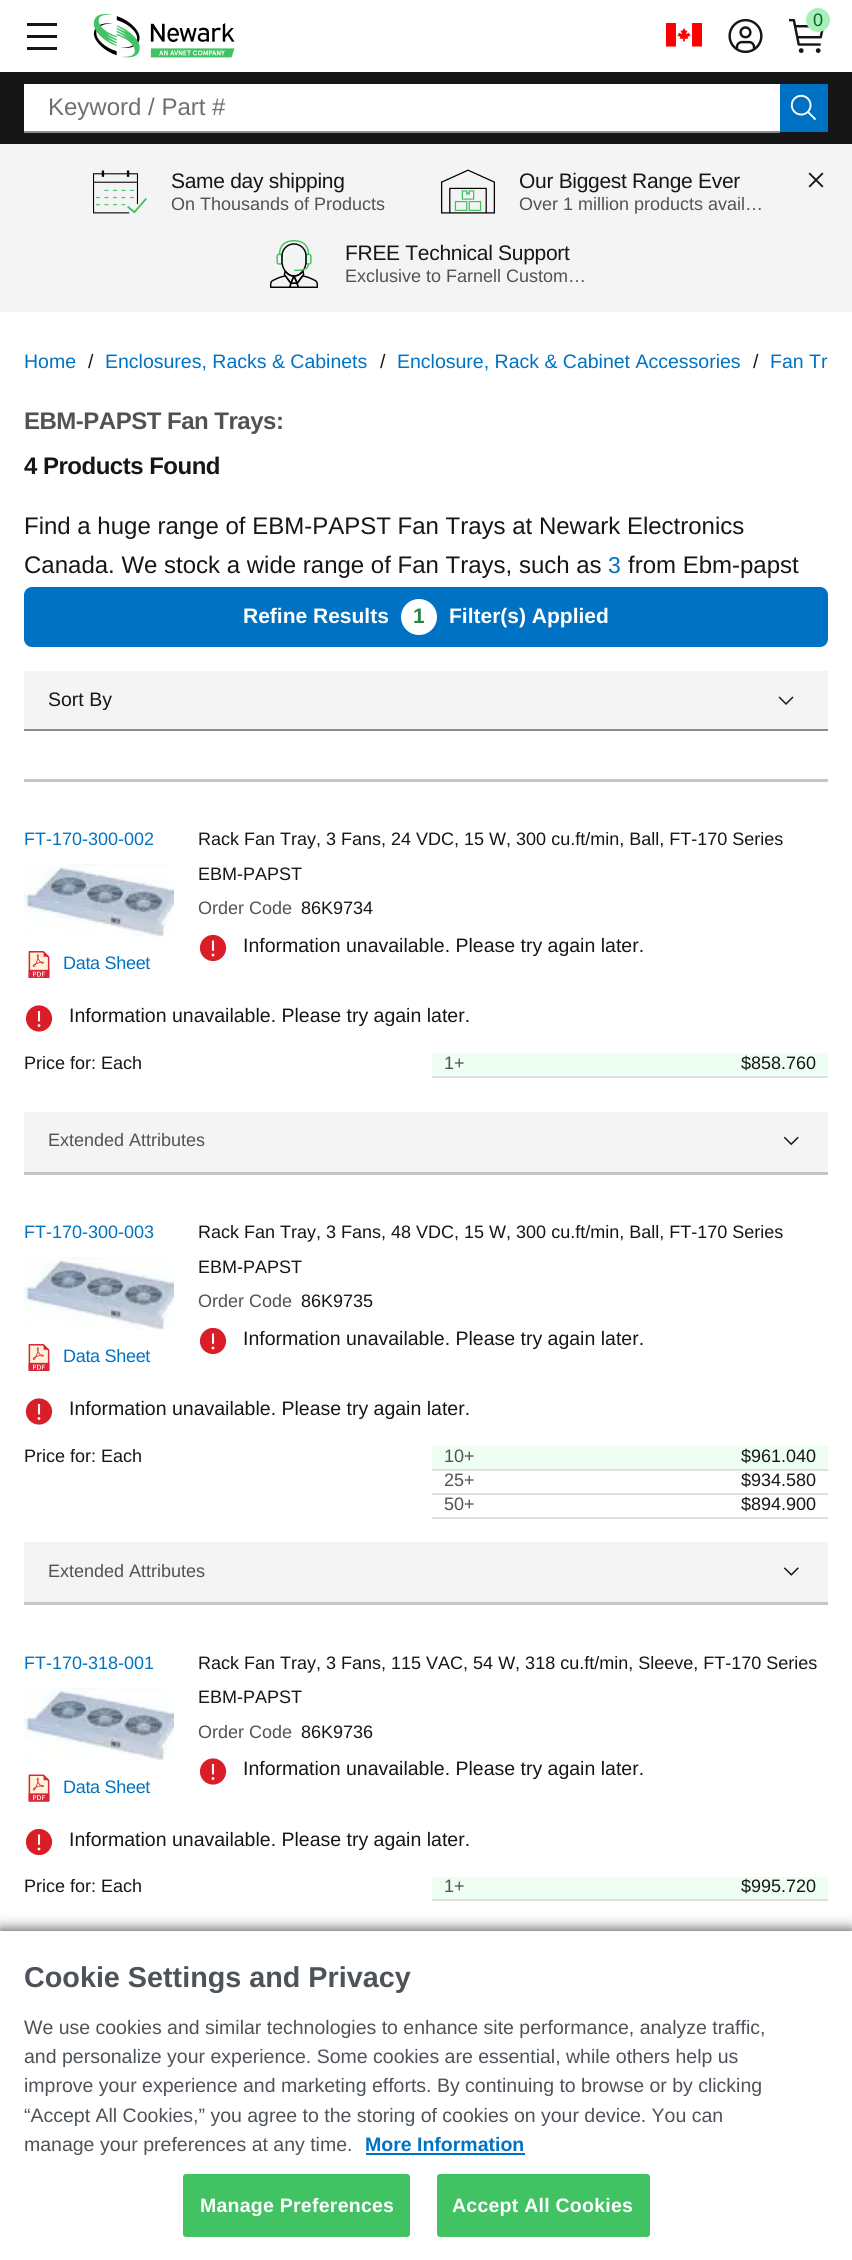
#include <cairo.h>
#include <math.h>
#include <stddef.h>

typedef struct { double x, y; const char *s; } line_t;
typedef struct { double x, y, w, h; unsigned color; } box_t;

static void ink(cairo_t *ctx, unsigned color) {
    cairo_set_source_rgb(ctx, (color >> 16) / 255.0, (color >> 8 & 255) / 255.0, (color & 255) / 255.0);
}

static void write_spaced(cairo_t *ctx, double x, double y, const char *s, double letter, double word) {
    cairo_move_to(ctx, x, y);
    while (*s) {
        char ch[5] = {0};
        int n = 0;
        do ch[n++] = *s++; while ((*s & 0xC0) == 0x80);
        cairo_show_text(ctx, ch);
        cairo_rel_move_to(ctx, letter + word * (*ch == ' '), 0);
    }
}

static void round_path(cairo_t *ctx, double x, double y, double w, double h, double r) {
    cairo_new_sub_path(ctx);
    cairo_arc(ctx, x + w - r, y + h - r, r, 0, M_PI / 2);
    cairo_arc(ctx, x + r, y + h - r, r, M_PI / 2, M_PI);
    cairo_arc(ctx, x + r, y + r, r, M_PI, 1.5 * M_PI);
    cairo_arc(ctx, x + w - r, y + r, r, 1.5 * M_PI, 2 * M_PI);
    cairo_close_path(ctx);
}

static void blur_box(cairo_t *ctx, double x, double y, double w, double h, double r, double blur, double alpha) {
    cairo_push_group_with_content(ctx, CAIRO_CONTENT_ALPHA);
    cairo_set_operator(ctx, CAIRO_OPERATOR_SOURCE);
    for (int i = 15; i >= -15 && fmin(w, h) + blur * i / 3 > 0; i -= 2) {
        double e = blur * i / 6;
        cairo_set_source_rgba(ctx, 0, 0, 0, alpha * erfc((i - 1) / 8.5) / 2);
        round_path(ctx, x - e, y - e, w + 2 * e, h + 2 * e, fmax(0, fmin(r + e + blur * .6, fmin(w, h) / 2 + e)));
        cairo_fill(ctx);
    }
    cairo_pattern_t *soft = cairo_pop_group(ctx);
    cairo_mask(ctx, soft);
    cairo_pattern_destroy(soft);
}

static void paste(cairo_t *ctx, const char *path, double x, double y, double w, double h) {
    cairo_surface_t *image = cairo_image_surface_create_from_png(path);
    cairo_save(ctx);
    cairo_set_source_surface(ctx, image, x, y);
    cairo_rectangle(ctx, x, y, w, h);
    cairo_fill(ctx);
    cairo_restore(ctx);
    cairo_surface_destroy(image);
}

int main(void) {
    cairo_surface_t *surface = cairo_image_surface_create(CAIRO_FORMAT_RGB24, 852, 2260);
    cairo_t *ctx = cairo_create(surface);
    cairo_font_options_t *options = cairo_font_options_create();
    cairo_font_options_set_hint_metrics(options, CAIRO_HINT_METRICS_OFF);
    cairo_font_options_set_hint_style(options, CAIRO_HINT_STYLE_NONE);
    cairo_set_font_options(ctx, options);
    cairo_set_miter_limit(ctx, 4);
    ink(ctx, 0xFFFFFF);
    cairo_paint(ctx);
    {
        static const box_t items[] = {
            {27, 23, 30, 3, 0x161616},
            {27, 35, 30, 3, 0x161616},
            {27, 47, 30, 3, 0x161616},
        };
        for (size_t i = 0; i < sizeof items / sizeof *items; i++) {
            ink(ctx, items[i].color);
            cairo_rectangle(ctx, items[i].x, items[i].y, items[i].w, items[i].h);
            cairo_fill(ctx);
        }
    }
    paste(ctx, "media/1.png", 93, 14, 142, 44);
    paste(ctx, "media/2.png", 666, 23, 36, 24);
    paste(ctx, "media/3.png", 728, 18, 35, 36);
    paste(ctx, "media/4.png", 789, 18, 35, 35);
    ink(ctx, 0xA7F0BA);
    cairo_arc(ctx, 818, 20, 12, 0, 2 * M_PI);
    cairo_fill(ctx);
    cairo_select_font_face(ctx, "Liberation Sans", CAIRO_FONT_SLANT_NORMAL, CAIRO_FONT_WEIGHT_NORMAL);
    cairo_set_font_size(ctx, 18);
    ink(ctx, 0x0E6027);
    cairo_move_to(ctx, 813, 26);
    cairo_show_text(ctx, "0");
    {
        static const box_t items[] = {
            {0, 72, 852, 72, 0x161616},
            {24, 84, 756, 47, 0xFFFFFF},
            {24, 131, 756, 2, 0x8D8D8D},
        };
        for (size_t i = 0; i < sizeof items / sizeof *items; i++) {
            ink(ctx, items[i].color);
            cairo_rectangle(ctx, items[i].x, items[i].y, items[i].w, items[i].h);
            cairo_fill(ctx);
        }
    }
    cairo_set_font_size(ctx, 24);
    ink(ctx, 0x6F6F6F);
    cairo_move_to(ctx, 48, 115);
    cairo_show_text(ctx, "Keyword / Part #");
    ink(ctx, 0x0072C3);
    cairo_rectangle(ctx, 780, 84, 48, 48);
    cairo_fill(ctx);
    paste(ctx, "media/5.png", 790, 94, 27, 27);
    ink(ctx, 0xF4F4F4);
    cairo_rectangle(ctx, 0, 144, 852, 168);
    cairo_fill(ctx);
    paste(ctx, "media/6.png", 93, 170, 54, 44);
    cairo_set_font_size(ctx, 21);
    ink(ctx, 0x161616);
    write_spaced(ctx, 171, 188, "Same day shipping", -0.3, 0);
    cairo_set_font_size(ctx, 18);
    ink(ctx, 0x525252);
    cairo_move_to(ctx, 171, 210);
    cairo_show_text(ctx, "On Thousands of Products");
    paste(ctx, "media/7.png", 441, 169, 54, 45);
    cairo_set_font_size(ctx, 21);
    ink(ctx, 0x161616);
    write_spaced(ctx, 519, 188, "Our Biggest Range Ever", -0.3, 0);
    cairo_set_font_size(ctx, 18);
    ink(ctx, 0x525252);
    cairo_move_to(ctx, 519, 210);
    cairo_show_text(ctx, "Over 1 million products avail…");
    paste(ctx, "media/8.png", 270, 240, 48, 48);
    cairo_set_font_size(ctx, 21);
    ink(ctx, 0x161616);
    write_spaced(ctx, 345, 260, "FREE Technical Support", -0.3, 0);
    cairo_set_font_size(ctx, 18);
    ink(ctx, 0x525252);
    cairo_move_to(ctx, 345, 282);
    cairo_show_text(ctx, "Exclusive to Farnell Custom…");
    paste(ctx, "media/9.png", 808, 172, 16, 16);
    cairo_set_font_size(ctx, 19.5);
    ink(ctx, 0x0072C3);
    cairo_move_to(ctx, 24, 368);
    cairo_show_text(ctx, "Home");
    ink(ctx, 0x161616);
    cairo_move_to(ctx, 88, 368);
    cairo_show_text(ctx, "/");
    ink(ctx, 0x0072C3);
    cairo_move_to(ctx, 105, 368);
    cairo_show_text(ctx, "Enclosures, Racks & Cabinets");
    ink(ctx, 0x161616);
    cairo_move_to(ctx, 380, 368);
    cairo_show_text(ctx, "/");
    ink(ctx, 0x0072C3);
    cairo_move_to(ctx, 397, 368);
    cairo_show_text(ctx, "Enclosure, Rack & Cabinet Accessories");
    ink(ctx, 0x161616);
    cairo_move_to(ctx, 753, 368);
    cairo_show_text(ctx, "/");
    ink(ctx, 0x0072C3);
    cairo_move_to(ctx, 770, 368);
    cairo_show_text(ctx, "Fan Tr");
    cairo_select_font_face(ctx, "Liberation Sans", CAIRO_FONT_SLANT_NORMAL, CAIRO_FONT_WEIGHT_BOLD);
    cairo_set_font_size(ctx, 24);
    ink(ctx, 0x525252);
    write_spaced(ctx, 24, 429, "EBM-PAPST Fan Trays:", -0.5, 0);
    ink(ctx, 0x161616);
    write_spaced(ctx, 24, 474, "4 Products Found", -0.5, 0);
    cairo_select_font_face(ctx, "Liberation Sans", CAIRO_FONT_SLANT_NORMAL, CAIRO_FONT_WEIGHT_NORMAL);
    cairo_move_to(ctx, 24, 534);
    cairo_show_text(ctx, "Find a huge range of EBM-PAPST Fan Trays at Newark Electronics");
    cairo_move_to(ctx, 24, 573);
    cairo_show_text(ctx, "Canada. We stock a wide range of Fan Trays, such as");
    cairo_set_font_size(ctx, 23);
    ink(ctx, 0x0072C3);
    cairo_move_to(ctx, 608, 573);
    cairo_show_text(ctx, "3");
    cairo_set_font_size(ctx, 24);
    ink(ctx, 0x161616);
    cairo_move_to(ctx, 628, 573);
    cairo_show_text(ctx, "from Ebm-papst");
    ink(ctx, 0x0072C3);
    round_path(ctx, 24, 587, 804, 60, 8);
    cairo_fill(ctx);
    cairo_select_font_face(ctx, "Liberation Sans", CAIRO_FONT_SLANT_NORMAL, CAIRO_FONT_WEIGHT_BOLD);
    cairo_set_font_size(ctx, 21);
    ink(ctx, 0xFFFFFF);
    cairo_move_to(ctx, 243, 623);
    cairo_show_text(ctx, "Refine Results");
    cairo_new_path(ctx);
    cairo_arc(ctx, 419, 617, 18, 0, 2 * M_PI);
    cairo_fill(ctx);
    ink(ctx, 0x2A8442);
    cairo_move_to(ctx, 413, 623);
    cairo_show_text(ctx, "1");
    ink(ctx, 0xFFFFFF);
    cairo_move_to(ctx, 449, 623);
    cairo_show_text(ctx, "Filter(s) Applied");
    ink(ctx, 0xF4F4F4);
    cairo_rectangle(ctx, 24, 671, 804, 58);
    cairo_fill(ctx);
    ink(ctx, 0x8D8D8D);
    cairo_rectangle(ctx, 24, 729, 804, 2);
    cairo_fill(ctx);
    cairo_select_font_face(ctx, "Liberation Sans", CAIRO_FONT_SLANT_NORMAL, CAIRO_FONT_WEIGHT_NORMAL);
    cairo_set_font_size(ctx, 19.5);
    ink(ctx, 0x161616);
    cairo_move_to(ctx, 48, 706);
    cairo_show_text(ctx, "Sort By");
    paste(ctx, "media/10.png", 778, 696, 16, 9);
    ink(ctx, 0xC6C6C6);
    cairo_rectangle(ctx, 24, 779, 804, 3);
    cairo_fill(ctx);
    cairo_set_font_size(ctx, 18);
    ink(ctx, 0x0072C3);
    cairo_move_to(ctx, 24, 845);
    cairo_show_text(ctx, "FT-170-300-002");
    paste(ctx, "media/11.png", 24, 864, 150, 73);
    paste(ctx, "media/12.png", 28, 951, 22, 27);
    write_spaced(ctx, 63, 969, "Data Sheet", -0.3, 0);
    ink(ctx, 0x161616);
    cairo_move_to(ctx, 198, 845);
    cairo_show_text(ctx, "Rack Fan Tray, 3 Fans, 24 VDC, 15 W, 300 cu.ft/min, Ball, FT-170 Series");
    cairo_move_to(ctx, 198, 880);
    cairo_show_text(ctx, "EBM-PAPST");
    ink(ctx, 0x525252);
    cairo_move_to(ctx, 198, 914);
    cairo_show_text(ctx, "Order Code");
    ink(ctx, 0x161616);
    cairo_move_to(ctx, 301, 914);
    cairo_show_text(ctx, "86K9734");
    paste(ctx, "media/13.png", 199, 934, 28, 28);
    cairo_set_font_size(ctx, 19.5);
    cairo_move_to(ctx, 243, 952);
    cairo_show_text(ctx, "Information unavailable. Please try again later.");
    paste(ctx, "media/14.png", 25, 1005, 28, 27);
    cairo_move_to(ctx, 69, 1022);
    cairo_show_text(ctx, "Information unavailable. Please try again later.");
    cairo_set_font_size(ctx, 18);
    cairo_move_to(ctx, 24, 1069);
    cairo_show_text(ctx, "Price for: Each");
    ink(ctx, 0xEEFEF2);
    cairo_rectangle(ctx, 432, 1053, 396, 23);
    cairo_fill(ctx);
    ink(ctx, 0xE0E0E0);
    cairo_rectangle(ctx, 432, 1076, 396, 2);
    cairo_fill(ctx);
    ink(ctx, 0x525252);
    cairo_move_to(ctx, 444, 1069);
    cairo_show_text(ctx, "1+");
    ink(ctx, 0x161616);
    cairo_move_to(ctx, 741, 1069);
    cairo_show_text(ctx, "$858.760");
    ink(ctx, 0xF4F4F4);
    cairo_rectangle(ctx, 24, 1112, 804, 60);
    cairo_fill(ctx);
    ink(ctx, 0x525252);
    cairo_move_to(ctx, 48, 1146);
    cairo_show_text(ctx, "Extended Attributes");
    paste(ctx, "media/15.png", 783, 1136, 16, 10);
    ink(ctx, 0xC6C6C6);
    cairo_rectangle(ctx, 24, 1172, 804, 3);
    cairo_fill(ctx);
    ink(ctx, 0x0072C3);
    cairo_move_to(ctx, 24, 1238);
    cairo_show_text(ctx, "FT-170-300-003");
    paste(ctx, "media/11.png", 24, 1257, 150, 73);
    paste(ctx, "media/12.png", 28, 1344, 22, 27);
    write_spaced(ctx, 63, 1362, "Data Sheet", -0.3, 0);
    ink(ctx, 0x161616);
    cairo_move_to(ctx, 198, 1238);
    cairo_show_text(ctx, "Rack Fan Tray, 3 Fans, 48 VDC, 15 W, 300 cu.ft/min, Ball, FT-170 Series");
    cairo_move_to(ctx, 198, 1273);
    cairo_show_text(ctx, "EBM-PAPST");
    ink(ctx, 0x525252);
    cairo_move_to(ctx, 198, 1307);
    cairo_show_text(ctx, "Order Code");
    ink(ctx, 0x161616);
    cairo_move_to(ctx, 301, 1307);
    cairo_show_text(ctx, "86K9735");
    paste(ctx, "media/13.png", 199, 1327, 28, 28);
    cairo_set_font_size(ctx, 19.5);
    cairo_move_to(ctx, 243, 1345);
    cairo_show_text(ctx, "Information unavailable. Please try again later.");
    paste(ctx, "media/14.png", 25, 1398, 28, 27);
    cairo_move_to(ctx, 69, 1415);
    cairo_show_text(ctx, "Information unavailable. Please try again later.");
    cairo_set_font_size(ctx, 18);
    cairo_move_to(ctx, 24, 1462);
    cairo_show_text(ctx, "Price for: Each");
    ink(ctx, 0xEEFEF2);
    cairo_rectangle(ctx, 432, 1446, 396, 23);
    cairo_fill(ctx);
    ink(ctx, 0xE0E0E0);
    cairo_rectangle(ctx, 432, 1469, 396, 2);
    cairo_fill(ctx);
    ink(ctx, 0x525252);
    cairo_move_to(ctx, 444, 1462);
    cairo_show_text(ctx, "10+");
    ink(ctx, 0x161616);
    cairo_move_to(ctx, 741, 1462);
    cairo_show_text(ctx, "$961.040");
    ink(ctx, 0xE0E0E0);
    cairo_rectangle(ctx, 432, 1493, 396, 2);
    cairo_fill(ctx);
    ink(ctx, 0x525252);
    cairo_move_to(ctx, 444, 1486);
    cairo_show_text(ctx, "25+");
    ink(ctx, 0x161616);
    cairo_move_to(ctx, 741, 1486);
    cairo_show_text(ctx, "$934.580");
    ink(ctx, 0xE0E0E0);
    cairo_rectangle(ctx, 432, 1517, 396, 2);
    cairo_fill(ctx);
    ink(ctx, 0x525252);
    cairo_move_to(ctx, 444, 1510);
    cairo_show_text(ctx, "50+");
    ink(ctx, 0x161616);
    cairo_move_to(ctx, 741, 1510);
    cairo_show_text(ctx, "$894.900");
    ink(ctx, 0xF4F4F4);
    cairo_rectangle(ctx, 24, 1542, 804, 60);
    cairo_fill(ctx);
    ink(ctx, 0x525252);
    cairo_move_to(ctx, 48, 1577);
    cairo_show_text(ctx, "Extended Attributes");
    paste(ctx, "media/16.png", 783, 1567, 16, 9);
    ink(ctx, 0xC6C6C6);
    cairo_rectangle(ctx, 24, 1602, 804, 3);
    cairo_fill(ctx);
    ink(ctx, 0x0072C3);
    cairo_move_to(ctx, 24, 1669);
    cairo_show_text(ctx, "FT-170-318-001");
    paste(ctx, "media/17.png", 24, 1687, 150, 73);
    paste(ctx, "media/18.png", 28, 1774, 22, 28);
    write_spaced(ctx, 63, 1793, "Data Sheet", -0.3, 0);
    ink(ctx, 0x161616);
    cairo_move_to(ctx, 198, 1669);
    cairo_show_text(ctx, "Rack Fan Tray, 3 Fans, 115 VAC, 54 W, 318 cu.ft/min, Sleeve, FT-170 Series");
    cairo_move_to(ctx, 198, 1703);
    cairo_show_text(ctx, "EBM-PAPST");
    ink(ctx, 0x525252);
    cairo_move_to(ctx, 198, 1738);
    cairo_show_text(ctx, "Order Code");
    ink(ctx, 0x161616);
    cairo_move_to(ctx, 301, 1738);
    cairo_show_text(ctx, "86K9736");
    paste(ctx, "media/14.png", 199, 1758, 28, 27);
    cairo_set_font_size(ctx, 19.5);
    cairo_move_to(ctx, 243, 1775);
    cairo_show_text(ctx, "Information unavailable. Please try again later.");
    paste(ctx, "media/13.png", 25, 1828, 28, 28);
    cairo_move_to(ctx, 69, 1846);
    cairo_show_text(ctx, "Information unavailable. Please try again later.");
    cairo_set_font_size(ctx, 18);
    cairo_move_to(ctx, 24, 1892);
    cairo_show_text(ctx, "Price for: Each");
    ink(ctx, 0xEEFEF2);
    cairo_rectangle(ctx, 432, 1877, 396, 22);
    cairo_fill(ctx);
    ink(ctx, 0xE0E0E0);
    cairo_rectangle(ctx, 432, 1899, 396, 2);
    cairo_fill(ctx);
    ink(ctx, 0x525252);
    cairo_move_to(ctx, 444, 1892);
    cairo_show_text(ctx, "1+");
    ink(ctx, 0x161616);
    cairo_move_to(ctx, 741, 1892);
    cairo_show_text(ctx, "$995.720");
    ink(ctx, 0x000000);
    blur_box(ctx, 0, 1931, 852, 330, 0, 7.5, 0.8);
    ink(ctx, 0xFFFFFF);
    cairo_rectangle(ctx, 0, 1931, 852, 329);
    cairo_fill(ctx);
    cairo_select_font_face(ctx, "Liberation Sans", CAIRO_FONT_SLANT_NORMAL, CAIRO_FONT_WEIGHT_BOLD);
    cairo_set_font_size(ctx, 28.75);
    ink(ctx, 0x4D5358);
    cairo_move_to(ctx, 24, 1987);
    cairo_show_text(ctx, "Cookie Settings and Privacy");
    cairo_select_font_face(ctx, "Liberation Sans", CAIRO_FONT_SLANT_NORMAL, CAIRO_FONT_WEIGHT_NORMAL);
    cairo_set_font_size(ctx, 19.5);
    {
        static const line_t items[] = {
            {24, 2034, "We use cookies and similar technologies to enhance site performance, analyze traffic,"},
            {24, 2063, "and personalize your experience. Some cookies are essential, while others help us"},
            {24, 2092, "improve your experience and marketing efforts. By continuing to browse or by clicking"},
            {24, 2122, "“Accept All Cookies,” you agree to the storing of cookies on your device. You can"},
            {24, 2151, "manage your preferences at any time."},
        };
        for (size_t i = 0; i < sizeof items / sizeof *items; i++) {
            cairo_move_to(ctx, items[i].x, items[i].y);
            cairo_show_text(ctx, items[i].s);
        }
    }
    cairo_select_font_face(ctx, "Liberation Sans", CAIRO_FONT_SLANT_NORMAL, CAIRO_FONT_WEIGHT_BOLD);
    ink(ctx, 0x0072C3);
    cairo_move_to(ctx, 365, 2151);
    cairo_show_text(ctx, "More Information");
    cairo_rectangle(ctx, 366, 2153, 159, 2);
    cairo_fill(ctx);
    ink(ctx, 0x41C363);
    round_path(ctx, 184, 2175, 225, 61, 2);
    cairo_fill_preserve(ctx);
    cairo_stroke(ctx);
    ink(ctx, 0xFFFFFF);
    write_spaced(ctx, 200, 2212, "Manage Preferences", 0.25, 0);
    ink(ctx, 0x41C363);
    round_path(ctx, 438, 2175, 211, 61, 2);
    cairo_fill_preserve(ctx);
    cairo_stroke(ctx);
    ink(ctx, 0xFFFFFF);
    write_spaced(ctx, 452, 2212, "Accept All Cookies", 0.25, 0);
    cairo_surface_write_to_png(surface, "image.png");
    cairo_font_options_destroy(options);
    cairo_destroy(ctx);
    cairo_surface_destroy(surface);
    return 0;
}
